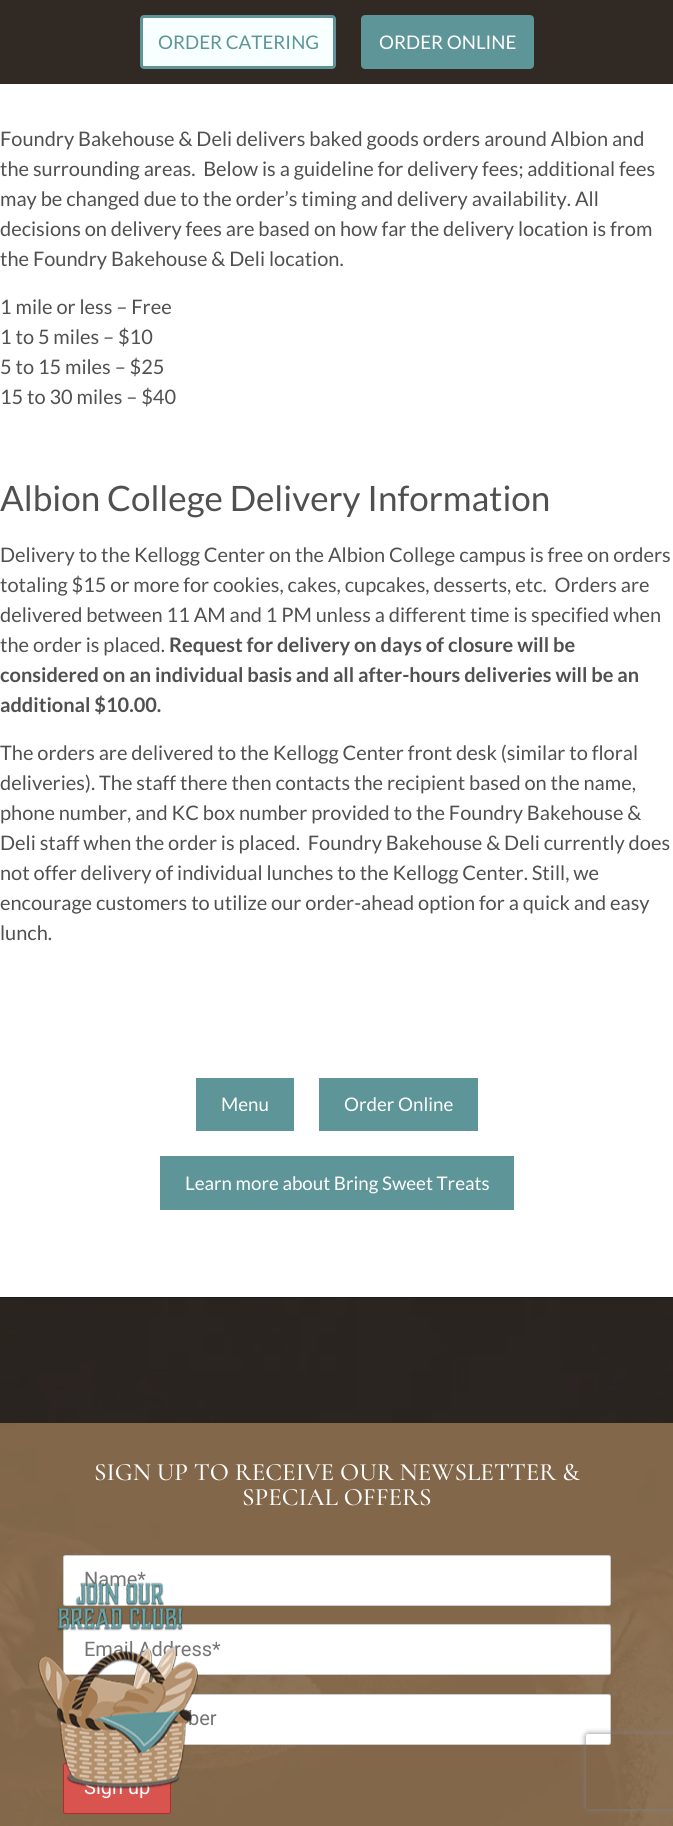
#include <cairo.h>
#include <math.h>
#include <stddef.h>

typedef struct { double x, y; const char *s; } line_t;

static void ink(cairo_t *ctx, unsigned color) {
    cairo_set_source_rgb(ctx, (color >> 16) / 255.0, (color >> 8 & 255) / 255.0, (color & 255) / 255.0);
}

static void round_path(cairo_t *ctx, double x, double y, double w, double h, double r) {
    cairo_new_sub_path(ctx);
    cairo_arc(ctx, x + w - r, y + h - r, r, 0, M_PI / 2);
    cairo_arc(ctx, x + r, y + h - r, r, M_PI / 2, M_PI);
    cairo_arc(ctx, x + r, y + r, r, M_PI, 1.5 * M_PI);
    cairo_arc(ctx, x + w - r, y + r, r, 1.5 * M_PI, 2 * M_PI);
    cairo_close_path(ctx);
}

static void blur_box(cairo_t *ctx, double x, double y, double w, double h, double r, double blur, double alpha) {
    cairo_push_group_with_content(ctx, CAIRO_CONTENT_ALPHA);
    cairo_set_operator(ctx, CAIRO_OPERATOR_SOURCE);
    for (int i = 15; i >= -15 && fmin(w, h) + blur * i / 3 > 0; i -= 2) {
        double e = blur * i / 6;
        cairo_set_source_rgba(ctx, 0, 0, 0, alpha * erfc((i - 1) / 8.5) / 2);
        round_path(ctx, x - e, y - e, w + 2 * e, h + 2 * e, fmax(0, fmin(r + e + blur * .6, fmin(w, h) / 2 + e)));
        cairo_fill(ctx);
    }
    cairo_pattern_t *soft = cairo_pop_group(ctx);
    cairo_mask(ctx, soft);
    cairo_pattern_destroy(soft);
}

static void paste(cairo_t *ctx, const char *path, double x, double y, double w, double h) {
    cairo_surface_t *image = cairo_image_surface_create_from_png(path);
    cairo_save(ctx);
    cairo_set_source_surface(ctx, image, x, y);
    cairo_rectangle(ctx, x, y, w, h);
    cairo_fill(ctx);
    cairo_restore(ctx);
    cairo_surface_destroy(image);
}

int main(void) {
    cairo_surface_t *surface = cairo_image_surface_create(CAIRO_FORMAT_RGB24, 673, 1826);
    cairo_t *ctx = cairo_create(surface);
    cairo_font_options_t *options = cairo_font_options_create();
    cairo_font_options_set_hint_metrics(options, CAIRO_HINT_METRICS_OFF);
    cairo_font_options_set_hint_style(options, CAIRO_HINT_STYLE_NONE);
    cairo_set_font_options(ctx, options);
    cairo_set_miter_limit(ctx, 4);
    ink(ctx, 0xFFFFFF);
    cairo_paint(ctx);
    ink(ctx, 0x302924);
    cairo_rectangle(ctx, 0, 0, 673, 84);
    cairo_fill(ctx);
    ink(ctx, 0xF8FFFF);
    round_path(ctx, 141.5, 16.5, 193, 51, 2.5);
    cairo_fill_preserve(ctx);
    ink(ctx, 0x5E9598);
    cairo_set_line_width(ctx, 3);
    cairo_stroke(ctx);
    cairo_select_font_face(ctx, "Lato", CAIRO_FONT_SLANT_NORMAL, CAIRO_FONT_WEIGHT_NORMAL);
    cairo_set_font_size(ctx, 18.75);
    cairo_move_to(ctx, 158, 49);
    cairo_show_text(ctx, "ORDER CATERING");
    round_path(ctx, 362.5, 16.5, 170, 51, 2.5);
    cairo_fill_preserve(ctx);
    cairo_stroke(ctx);
    ink(ctx, 0xFFFFFF);
    cairo_move_to(ctx, 379, 49);
    cairo_show_text(ctx, "ORDER ONLINE");
    cairo_set_font_size(ctx, 20);
    ink(ctx, 0x515050);
    {
        static const line_t items[] = {
            {0, 146, "Foundry Bakehouse & Deli delivers baked goods orders around Albion and"},
            {0, 176, "the surrounding areas.  Below is a guideline for delivery fees; additional fees"},
            {0, 206, "may be changed due to the order’s timing and delivery availability. All"},
            {0, 236, "decisions on delivery fees are based on how far the delivery location is from"},
            {0, 266, "the Foundry Bakehouse & Deli location."},
            {0, 314, "1 mile or less – Free"},
            {0, 344, "1 to 5 miles – $10"},
            {0, 374, "5 to 15 miles – $25"},
            {0, 404, "15 to 30 miles – $40"},
        };
        for (size_t i = 0; i < sizeof items / sizeof *items; i++) {
            cairo_move_to(ctx, items[i].x, items[i].y);
            cairo_show_text(ctx, items[i].s);
        }
    }
    cairo_set_font_size(ctx, 35);
    cairo_move_to(ctx, 0, 511);
    cairo_show_text(ctx, "Albion College Delivery Information");
    cairo_set_font_size(ctx, 20);
    {
        static const line_t items[] = {
            {0, 562, "Delivery to the Kellogg Center on the Albion College campus is free on orders"},
            {0, 592, "totaling $15 or more for cookies, cakes, cupcakes, desserts, etc.  Orders are"},
            {0, 622, "delivered between 11 AM and 1 PM unless a different time is specified when"},
            {0, 652, "the order is placed."},
        };
        for (size_t i = 0; i < sizeof items / sizeof *items; i++) {
            cairo_move_to(ctx, items[i].x, items[i].y);
            cairo_show_text(ctx, items[i].s);
        }
    }
    cairo_select_font_face(ctx, "Lato", CAIRO_FONT_SLANT_NORMAL, CAIRO_FONT_WEIGHT_BOLD);
    {
        static const line_t items[] = {
            {169, 652, "Request for delivery on days of closure will be"},
            {0, 682, "considered on an individual basis and all after-hours deliveries will be an"},
            {0, 712, "additional $10.00."},
        };
        for (size_t i = 0; i < sizeof items / sizeof *items; i++) {
            cairo_move_to(ctx, items[i].x, items[i].y);
            cairo_show_text(ctx, items[i].s);
        }
    }
    cairo_select_font_face(ctx, "Lato", CAIRO_FONT_SLANT_NORMAL, CAIRO_FONT_WEIGHT_NORMAL);
    {
        static const line_t items[] = {
            {0, 760, "The orders are delivered to the Kellogg Center front desk (similar to floral"},
            {0, 790, "deliveries). The staff there then contacts the recipient based on the name,"},
            {0, 820, "phone number, and KC box number provided to the Foundry Bakehouse &"},
            {0, 850, "Deli staff when the order is placed.  Foundry Bakehouse & Deli currently does"},
            {0, 880, "not offer delivery of individual lunches to the Kellogg Center. Still, we"},
            {0, 910, "encourage customers to utilize our order-ahead option for a quick and easy"},
            {0, 940, "lunch."},
        };
        for (size_t i = 0; i < sizeof items / sizeof *items; i++) {
            cairo_move_to(ctx, items[i].x, items[i].y);
            cairo_show_text(ctx, items[i].s);
        }
    }
    ink(ctx, 0x5E9598);
    cairo_rectangle(ctx, 196, 1078, 98, 53);
    cairo_fill(ctx);
    cairo_set_font_size(ctx, 18.75);
    ink(ctx, 0xFFFFFF);
    cairo_move_to(ctx, 221, 1111);
    cairo_show_text(ctx, "Menu");
    ink(ctx, 0x5E9598);
    cairo_rectangle(ctx, 319, 1078, 159, 53);
    cairo_fill(ctx);
    ink(ctx, 0xFFFFFF);
    cairo_move_to(ctx, 344, 1111);
    cairo_show_text(ctx, "Order Online");
    ink(ctx, 0x5E9598);
    cairo_rectangle(ctx, 160, 1156, 354, 54);
    cairo_fill(ctx);
    ink(ctx, 0xFFFFFF);
    cairo_move_to(ctx, 185, 1190);
    cairo_show_text(ctx, "Learn more about Bring Sweet Treats");
    paste(ctx, "media/1.png", 0, 1297, 673, 529);
    cairo_set_source_rgba(ctx, 0.624, 0.49, 0.345, 0.75);
    cairo_rectangle(ctx, 0, 1423, 673, 403);
    cairo_fill(ctx);
    cairo_select_font_face(ctx, "Cormorant Medium", CAIRO_FONT_SLANT_NORMAL, CAIRO_FONT_WEIGHT_NORMAL);
    cairo_set_font_size(ctx, 25);
    ink(ctx, 0xFFFFFF);
    cairo_move_to(ctx, 94, 1480);
    cairo_show_text(ctx, "SIGN UP TO RECEIVE OUR NEWSLETTER &");
    cairo_move_to(ctx, 242, 1505);
    cairo_show_text(ctx, "SPECIAL OFFERS");
    round_path(ctx, 63.5, 1555.5, 547, 50, 2);
    cairo_fill_preserve(ctx);
    ink(ctx, 0xCCCCCC);
    cairo_set_line_width(ctx, 1);
    cairo_stroke(ctx);
    cairo_select_font_face(ctx, "Roboto", CAIRO_FONT_SLANT_NORMAL, CAIRO_FONT_WEIGHT_NORMAL);
    cairo_set_font_size(ctx, 20);
    ink(ctx, 0x757575);
    cairo_move_to(ctx, 84, 1586);
    cairo_show_text(ctx, "Name*");
    ink(ctx, 0xFFFFFF);
    round_path(ctx, 63.5, 1624.5, 547, 50, 2);
    cairo_fill_preserve(ctx);
    ink(ctx, 0xCCCCCC);
    cairo_stroke(ctx);
    ink(ctx, 0x757575);
    cairo_move_to(ctx, 84, 1656);
    cairo_show_text(ctx, "Email Address*");
    ink(ctx, 0xFFFFFF);
    round_path(ctx, 63.5, 1694.5, 547, 50, 2);
    cairo_fill_preserve(ctx);
    ink(ctx, 0xCCCCCC);
    cairo_stroke(ctx);
    ink(ctx, 0x757575);
    cairo_move_to(ctx, 188, 1725);
    cairo_show_text(ctx, "ber");
    ink(ctx, 0xD9534F);
    round_path(ctx, 63.5, 1763.5, 107, 50, 2);
    cairo_fill_preserve(ctx);
    ink(ctx, 0xB52B27);
    cairo_stroke(ctx);
    ink(ctx, 0xFFFFFF);
    cairo_move_to(ctx, 84, 1794);
    cairo_show_text(ctx, "Sign up");
    paste(ctx, "media/2.png", 38, 1582, 160, 207);
    cairo_save(ctx);
    cairo_set_fill_rule(ctx, CAIRO_FILL_RULE_EVEN_ODD);
    cairo_new_path(ctx);
    cairo_move_to(ctx, 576, 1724);
    cairo_line_to(ctx, 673, 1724);
    cairo_line_to(ctx, 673, 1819);
    cairo_line_to(ctx, 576, 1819);
    cairo_close_path(ctx);
    cairo_move_to(ctx, 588.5, 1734);
    cairo_line_to(ctx, 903.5, 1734);
    cairo_curve_to(ctx, 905, 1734, 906, 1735, 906, 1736.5);
    cairo_line_to(ctx, 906, 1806.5);
    cairo_curve_to(ctx, 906, 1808, 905, 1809, 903.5, 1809);
    cairo_line_to(ctx, 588.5, 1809);
    cairo_curve_to(ctx, 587, 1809, 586, 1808, 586, 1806.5);
    cairo_line_to(ctx, 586, 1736.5);
    cairo_curve_to(ctx, 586, 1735, 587, 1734, 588.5, 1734);
    cairo_close_path(ctx);
    cairo_clip(ctx);
    ink(ctx, 0x808080);
    blur_box(ctx, 586, 1734, 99, 75, 2.5, 3, 1);
    cairo_restore(ctx);
    cairo_surface_write_to_png(surface, "image.png");
    cairo_font_options_destroy(options);
    cairo_destroy(ctx);
    cairo_surface_destroy(surface);
    return 0;
}
